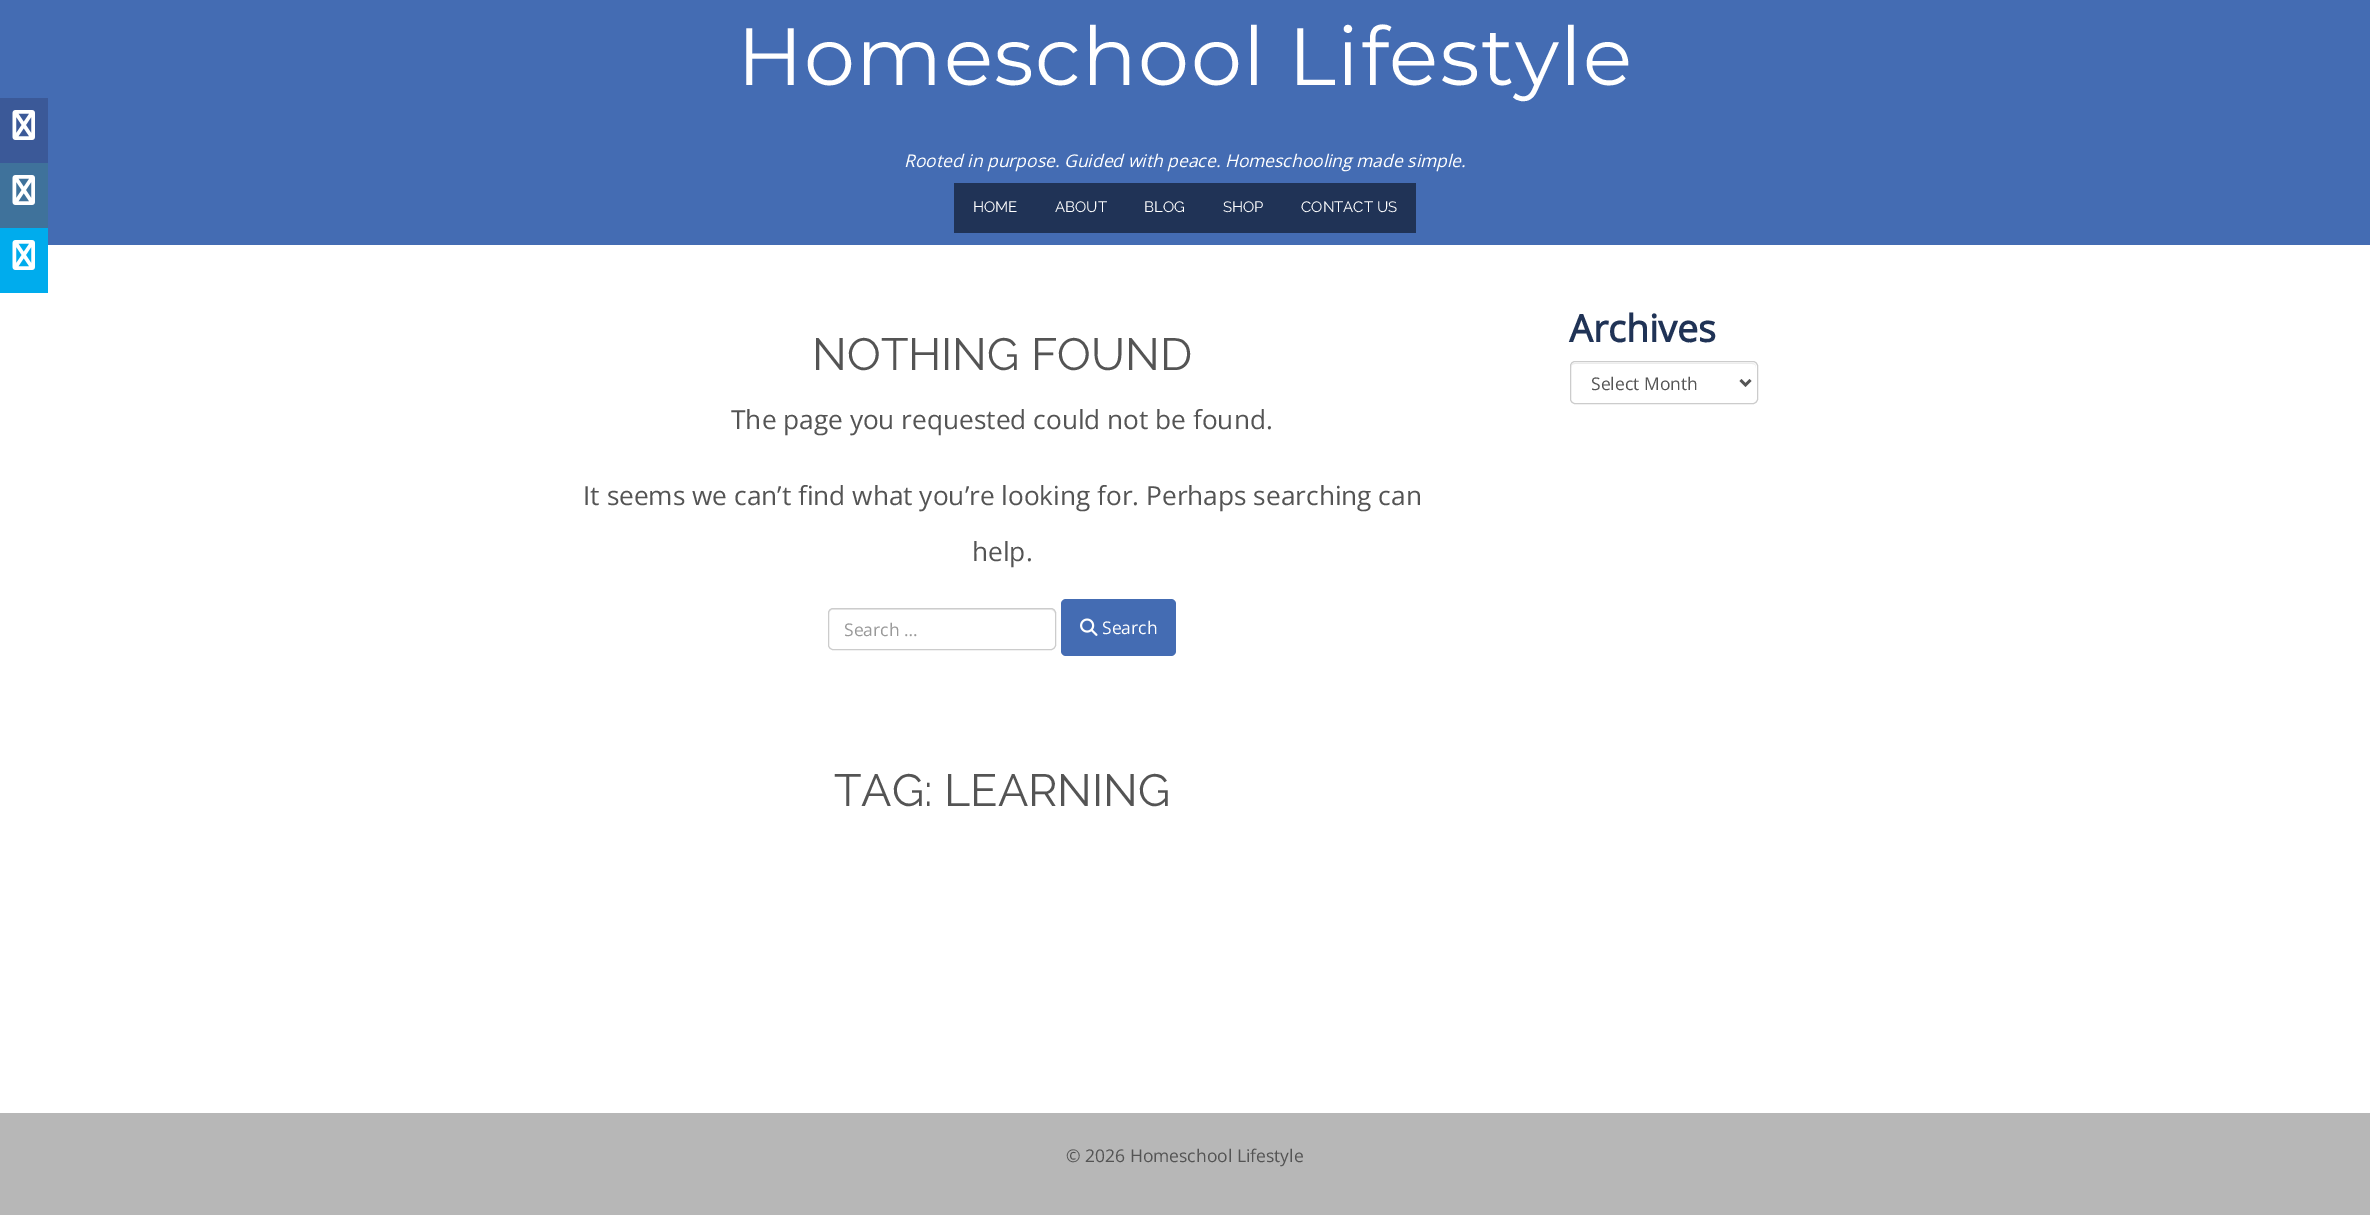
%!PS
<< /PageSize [2370 1215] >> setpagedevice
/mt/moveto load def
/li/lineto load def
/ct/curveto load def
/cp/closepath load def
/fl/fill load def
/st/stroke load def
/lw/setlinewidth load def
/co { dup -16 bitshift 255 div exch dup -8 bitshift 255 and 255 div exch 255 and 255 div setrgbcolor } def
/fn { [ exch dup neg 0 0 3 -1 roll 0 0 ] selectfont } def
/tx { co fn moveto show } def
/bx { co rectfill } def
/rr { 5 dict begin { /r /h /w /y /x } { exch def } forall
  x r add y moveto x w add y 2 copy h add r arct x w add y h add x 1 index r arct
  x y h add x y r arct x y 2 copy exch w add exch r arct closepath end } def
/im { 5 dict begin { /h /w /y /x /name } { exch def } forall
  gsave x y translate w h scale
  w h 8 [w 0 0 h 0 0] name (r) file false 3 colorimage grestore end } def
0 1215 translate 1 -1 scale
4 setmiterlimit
0 0 2370 1215 16#446CB3 bx
0 98 48 65 16#3B5998 bx
(media/1.raw) 12 110 23 30 im
0 163 48 65 16#3F729B bx
(media/2.raw) 12 175 23 30 im
0 245 2370 868 16#FFFFFF bx
0 228 48 65 16#00ACED bx
(media/3.raw) 12 240 23 30 im
954 183 462 50 16#203356 bx
16#ECECEC co
832 610 mt 1051 610 li 1053 610 1055 612 1055 614 ct 1055 611 1054 609 1051 609 ct 833 609 li 830 609 829 611 829 614 ct 829 612 830 610 832 610 ct cp fl
16#CCCCCC co
828.5 608.5 227 41 4.5 rr st
16#446CB3 co
1061 599 115 57 5 rr fl
(media/4.raw) 1080 618 18 18 im
16#ECECEC co
1575 364 mt 1752 364 li 1755 364 1756 365 1756 368 ct 1756 365 1755 363 1752 363 ct 1574 363 li 1572 364 1571 366 1571 368 ct 1571 365 1573 364 1575 364 ct cp fl
16#CCCCCC co
1570.5 361.5 187 42 4.5 rr st
16#555555 co
2.5 lw
1740.5 380 mt 1745.5 385 li 1750.5 380 li st
0 1113 2370 102 16#B7B7B7 bx
/Montserrat-Thin 81.25 fn
16#FFFFFF co
737 85 mt 1.25 0 (Homeschool Lifestyle) ashow
(Rooted in purpose. Guided with peace. Homeschooling made simple.) 904 167 /OpenSans-Italic 17.5 16#FFFFFF tx
(HOME) 973 212 /Raleway-Thin 15 16#FFFFFF tx
(ABOUT) 1055 212 /Raleway-Thin 15 16#FFFFFF tx
(BLOG) 1144 212 /Raleway-Thin 15 16#FFFFFF tx
(SHOP) 1223 212 /Raleway-Thin 15 16#FFFFFF tx
(CONTACT US) 1301 212 /Raleway-Thin 15 16#FFFFFF tx
(NOTHING FOUND) 812 370 /Raleway-Thin 45 16#545454 tx
(The page you requested could not be found.) 731 429 /OpenSans-Regular 26.25 16#545454 tx
(It seems we can’t find what you’re looking for. Perhaps searching can) 583 505 /OpenSans-Regular 26.25 16#545454 tx
(help.) 972 561 /OpenSans-Regular 26.25 16#545454 tx
(Search …) 844 636 /OpenSans-Regular 17.5 16#999999 tx
(Search) 1102 634 /OpenSans-Regular 17.5 16#FFFFFF tx
(TAG: LEARNING) 834 806 /Raleway-Thin 45 16#545454 tx
(Archives) 1569 342 /OpenSans-Bold 37.5 16#203356 tx
(Select Month) 1591 390 /OpenSans-Regular 17.5 16#545454 tx
(© 2026 Homeschool Lifestyle) 1066 1162 /OpenSans-Regular 17.5 16#545454 tx
showpage
